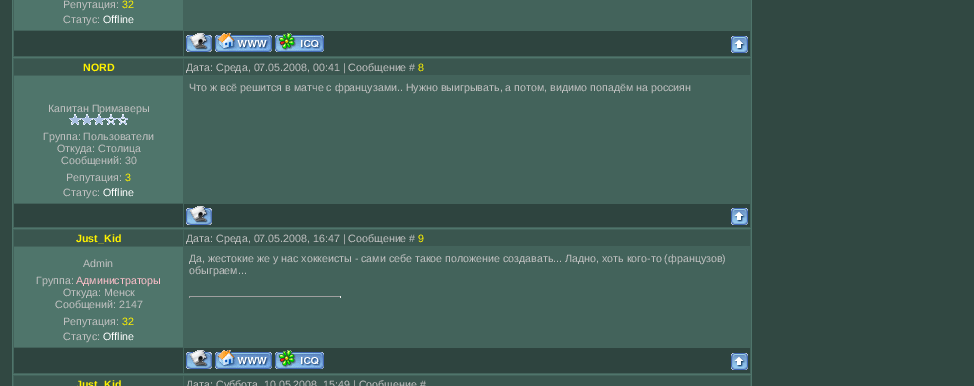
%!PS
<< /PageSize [974 386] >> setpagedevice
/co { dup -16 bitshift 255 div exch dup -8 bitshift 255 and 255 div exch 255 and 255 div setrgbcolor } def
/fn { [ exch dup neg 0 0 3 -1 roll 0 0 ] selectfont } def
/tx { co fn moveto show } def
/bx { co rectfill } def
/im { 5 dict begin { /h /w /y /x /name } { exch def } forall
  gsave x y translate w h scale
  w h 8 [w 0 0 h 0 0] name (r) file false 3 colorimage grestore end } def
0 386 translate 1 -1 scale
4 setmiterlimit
0 0 974 386 16#314842 bx
12 0 740 386 16#4F756B bx
13 0 738 57 16#43635B bx
14 0 169 30 16#4F756B bx
14 31 169 25 16#2E443F bx
184 31 566 25 16#2E443F bx
(media/1.raw) 186 33 26 19 im
(media/2.raw) 215 33 57 19 im
(media/3.raw) 275 33 49 19 im
(media/4.raw) 731 36 17 17 im
13 58 738 170 16#43635B bx
14 59 169 16 16#3A564F bx
184 59 566 16 16#3A564F bx
14 76 169 127 16#4F756B bx
14 204 169 23 16#2E443F bx
184 204 566 23 16#2E443F bx
(media/1.raw) 186 206 26 19 im
(media/4.raw) 731 208 17 17 im
13 229 738 145 16#43635B bx
14 230 169 16 16#3A564F bx
184 230 566 16 16#3A564F bx
14 247 169 100 16#4F756B bx
189 296 152 1 16#9F9F9F bx
340 296 1 2 16#EEEEEE bx
189 296 1 2 16#9F9F9F bx
14 348 169 25 16#2E443F bx
184 348 566 25 16#2E443F bx
(media/1.raw) 186 350 26 19 im
(media/2.raw) 215 350 57 19 im
(media/3.raw) 275 350 49 19 im
(media/4.raw) 731 353 17 17 im
13 375 738 11 16#43635B bx
14 376 169 10 16#3A564F bx
184 376 566 10 16#3A564F bx
(Репутация:) 63 8 /LiberationSans-Regular 10.67 16#C2C2C2 tx
(32) 122 8 /LiberationSans-Regular 10.67 16#FFF200 tx
(Статус:) 63 23 /LiberationSans-Regular 10.67 16#C2C2C2 tx
(Offline) 103 23 /LiberationSans-Regular 10.67 16#FFFFFF tx
(NORD) 83 71 /LiberationSans-Bold 10.67 16#FFF200 tx
(Дата: Среда, 07.05.2008, 00:41 | Сообщение #) 186 71 /LiberationSans-Regular 10.67 16#C2C2C2 tx
(8) 418 71 /LiberationSans-Regular 10.67 16#FFF200 tx
(Что ж всё решится в матче с французами.. Нужно выигрывать, а потом, видимо попадём на россиян) 189 91 /LiberationSans-Regular 10.67 16#C2C2C2 tx
(Капитан Примаверы) 48 112 /LiberationSans-Regular 10.67 16#C2C2C2 tx
(media/5.raw) 69 114 59 11 im
(Группа: Пользователи) 43 140 /LiberationSans-Regular 10.67 16#C2C2C2 tx
(Откуда: Столица) 57 152 /LiberationSans-Regular 10.67 16#C2C2C2 tx
(Сообщений: 30) 61 164 /LiberationSans-Regular 10.67 16#C2C2C2 tx
(Репутация:) 66 181 /LiberationSans-Regular 10.67 16#C2C2C2 tx
(3) 125 181 /LiberationSans-Regular 10.67 16#FFF200 tx
(Статус:) 63 196 /LiberationSans-Regular 10.67 16#C2C2C2 tx
(Offline) 103 196 /LiberationSans-Regular 10.67 16#FFFFFF tx
(Just_Kid) 76 242 /LiberationSans-Bold 10.67 16#FFF200 tx
(Дата: Среда, 07.05.2008, 16:47 | Сообщение #) 186 242 /LiberationSans-Regular 10.67 16#C2C2C2 tx
(9) 418 242 /LiberationSans-Regular 10.67 16#FFF200 tx
(Admin) 83 267 /LiberationSans-Regular 10.67 16#C2C2C2 tx
(Группа:) 36 284 /LiberationSans-Regular 10.67 16#C2C2C2 tx
(Администраторы) 76 284 /LiberationSans-Regular 10.67 16#FFC0CB tx
(Откуда: Менск) 63 296 /LiberationSans-Regular 10.67 16#C2C2C2 tx
(Сообщений: 2147) 55 308 /LiberationSans-Regular 10.67 16#C2C2C2 tx
(Репутация:) 63 325 /LiberationSans-Regular 10.67 16#C2C2C2 tx
(32) 122 325 /LiberationSans-Regular 10.67 16#FFF200 tx
(Статус:) 63 340 /LiberationSans-Regular 10.67 16#C2C2C2 tx
(Offline) 103 340 /LiberationSans-Regular 10.67 16#FFFFFF tx
(Да, жестокие же у нас хоккеисты - сами себе такое положение создавать... Ладно, хоть кого-то \(французов\)) 189 262 /LiberationSans-Regular 10.67 16#C2C2C2 tx
(обыграем...) 189 274 /LiberationSans-Regular 10.67 16#C2C2C2 tx
(Just_Kid) 76 388 /LiberationSans-Bold 10.67 16#FFF200 tx
(Дата: Суббота, 10.05.2008, 15:49 | Сообщение #) 186 388 /LiberationSans-Regular 10.67 16#C2C2C2 tx
showpage
